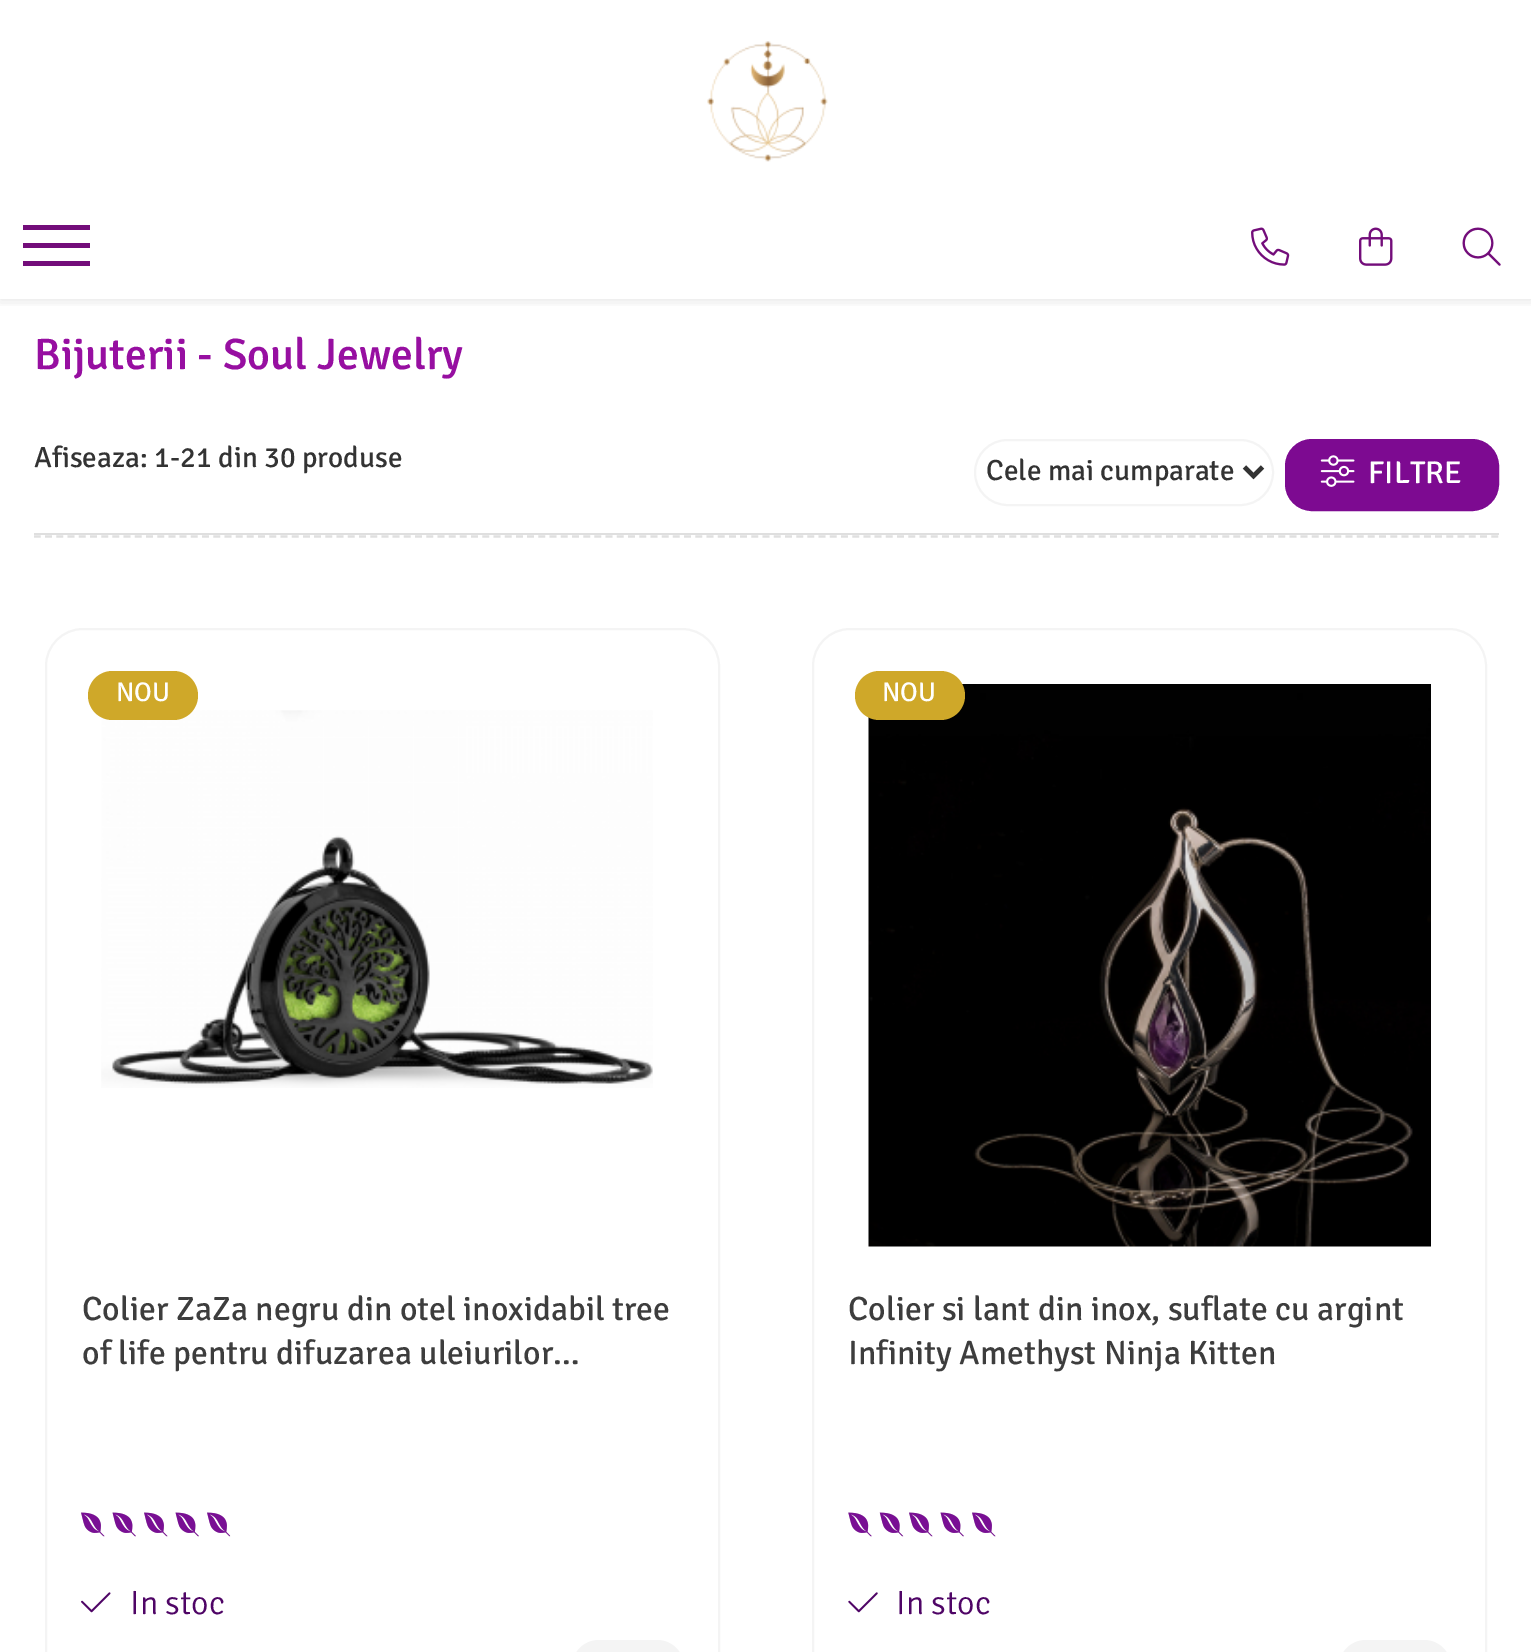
%!PS
<< /PageSize [1531 1652] /PageUsesTransparency true >> setpagedevice
/mt/moveto load def
/li/lineto load def
/ct/curveto load def
/cp/closepath load def
/fl/fill load def
/st/stroke load def
/gs/gsave load def
/gr/grestore load def
/lw/setlinewidth load def
/co { dup -16 bitshift 255 div exch dup -8 bitshift 255 and 255 div exch 255 and 255 div setrgbcolor } def
/fn { [ exch dup neg 0 0 3 -1 roll 0 0 ] selectfont } def
/tx { co fn moveto show } def
/bx { co rectfill } def
/al { dup .setfillconstantalpha .setstrokeconstantalpha } def
/rr { 5 dict begin { /r /h /w /y /x } { exch def } forall
  x r add y moveto x w add y 2 copy h add r arct x w add y h add x 1 index r arct
  x y h add x y r arct x y 2 copy exch w add exch r arct closepath end } def
/sh { 12 dict begin { /a /b /q /h /w /y /x } { exch def } forall gsave /was 0 def
  9 -2 -9 { dup b mul 4 div /e exch def 1 sub .425 mul 2.718 exch exp 1 add a .99 .min exch div /now exch def
    1 1 now sub 1 was sub div sub al /was now def
    w h .min e 2 mul add 0 gt { x e sub y e sub w e 2 mul add h e 2 mul add
      q e add b .6 mul add w h .min 2 div e add .min 0 .max rr fill } if } for grestore end } def
/im { 5 dict begin { /h /w /y /x /name } { exch def } forall
  gsave x y translate w h scale
  w h 8 [w 0 0 h 0 0] name (r) file false 3 colorimage grestore end } def
0 .pushpdf14devicefilter
0 1652 translate 1 -1 scale
4 setmiterlimit
0 0 1531 1652 16#FFFFFF bx
gs
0 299 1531 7 rectclip
16#000000 co
0 0 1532 299 0 7 .12 sh
gr
(media/1.raw) 707 41 121 121 im
23 243 67 5 16#730D7A bx
23 225 67 5 16#730D7A bx
23 261 67 5 16#730D7A bx
(media/2.raw) 1251 227 39 39 im
(media/3.raw) 1359 227 34 39 im
(media/4.raw) 1462 227 39 39 im
34 533 1465 2 16#DFDFDF bx
16#F4F4F4 co
2 lw
975 440 298 65 32.5 rr st
16#333333 co
4.5 lw
1244.5 467 mt 1253.5 476 li 1262.5 467 li st
16#7D0A91 co
1286 440 212 70 26 rr gs fl gr
2 lw
st
(media/5.raw) 1320 455 35 32 im
16#DFDFDF co
2.2 lw
[6.75 4.46] 0 setdash
34 536.5 mt 1498.5 536.5 li st
16#F4F4F4 co
2 lw
[] 0 setdash
46 629 673 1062 37 rr st
(media/6.raw) 101 710 552 378 im
16#CFA829 co
88 671 110 49 24.5 rr fl
(media/7.raw) 81 1512 24 25 im
(media/8.raw) 81 1512 24 25 im
(media/11.raw) 112 1512 24 25 im
(media/9.raw) 112 1512 24 25 im
(media/7.raw) 144 1512 24 25 im
(media/8.raw) 144 1512 24 25 im
(media/11.raw) 175 1512 24 25 im
(media/9.raw) 175 1512 24 25 im
(media/7.raw) 207 1512 24 25 im
(media/10.raw) 207 1512 23 25 im
(media/12.raw) 81 1592 30 21 im
16#F4F4F4 co
599 1640 mt 657 1640 li 672 1640 684 1652 684 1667 ct 684 1652 li 684 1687 656 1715 621 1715 ct 599 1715 li 584 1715 572 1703 572 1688 ct 572 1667 li 572 1652 584 1640 599 1640 ct cp fl
813 629 673 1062 37 rr st
(media/13.raw) 868 684 563 563 im
16#CFA829 co
855 671 110 49 24.5 rr fl
(media/14.raw) 848 1512 24 25 im
(media/15.raw) 848 1512 24 25 im
(media/17.raw) 879 1512 24 25 im
(media/16.raw) 879 1512 25 25 im
(media/7.raw) 909 1512 24 25 im
(media/8.raw) 909 1512 24 25 im
(media/11.raw) 940 1512 24 25 im
(media/9.raw) 940 1512 24 25 im
(media/7.raw) 972 1512 24 25 im
(media/8.raw) 972 1512 24 25 im
(media/18.raw) 848 1592 30 21 im
16#F4F4F4 co
1366 1640 mt 1424 1640 li 1439 1640 1451 1652 1451 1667 ct 1451 1652 li 1451 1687 1423 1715 1388 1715 ct 1366 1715 li 1351 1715 1339 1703 1339 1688 ct 1339 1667 li 1339 1652 1351 1640 1366 1640 ct cp fl
(Bijuterii - Soul Jewelry) 34 369 /Signika-Medium 44 16#970FA1 tx
(Afiseaza: 1-21 din 30 produse) 34 467 /Signika-Regular 29.25 16#333333 tx
(Cele mai cumparate) 986 480 /Signika-Regular 29.25 16#333333 tx
(FILTRE) 1368 483 /Signika-Regular 31.5 16#FFFFFF tx
(NOU) 116 701 /Signika-Regular 27 16#FFFFFF tx
(Colier ZaZa negru din otel inoxidabil tree) 82 1320 /Signika-Regular 33.75 16#3D3D3D tx
(of life pentru difuzarea uleiurilor…) 82 1364 /Signika-Regular 33.75 16#3D3D3D tx
(In stoc) 130 1614 /Signika-Light 33.75 16#4F0566 tx
(NOU) 882 701 /Signika-Regular 27 16#FFFFFF tx
(Colier si lant din inox, suflate cu argint) 848 1320 /Signika-Regular 33.75 16#3D3D3D tx
(Infinity Amethyst Ninja Kitten) 848 1364 /Signika-Regular 33.75 16#3D3D3D tx
(In stoc) 896 1614 /Signika-Light 33.75 16#4F0566 tx
.poppdf14devicefilter showpage
